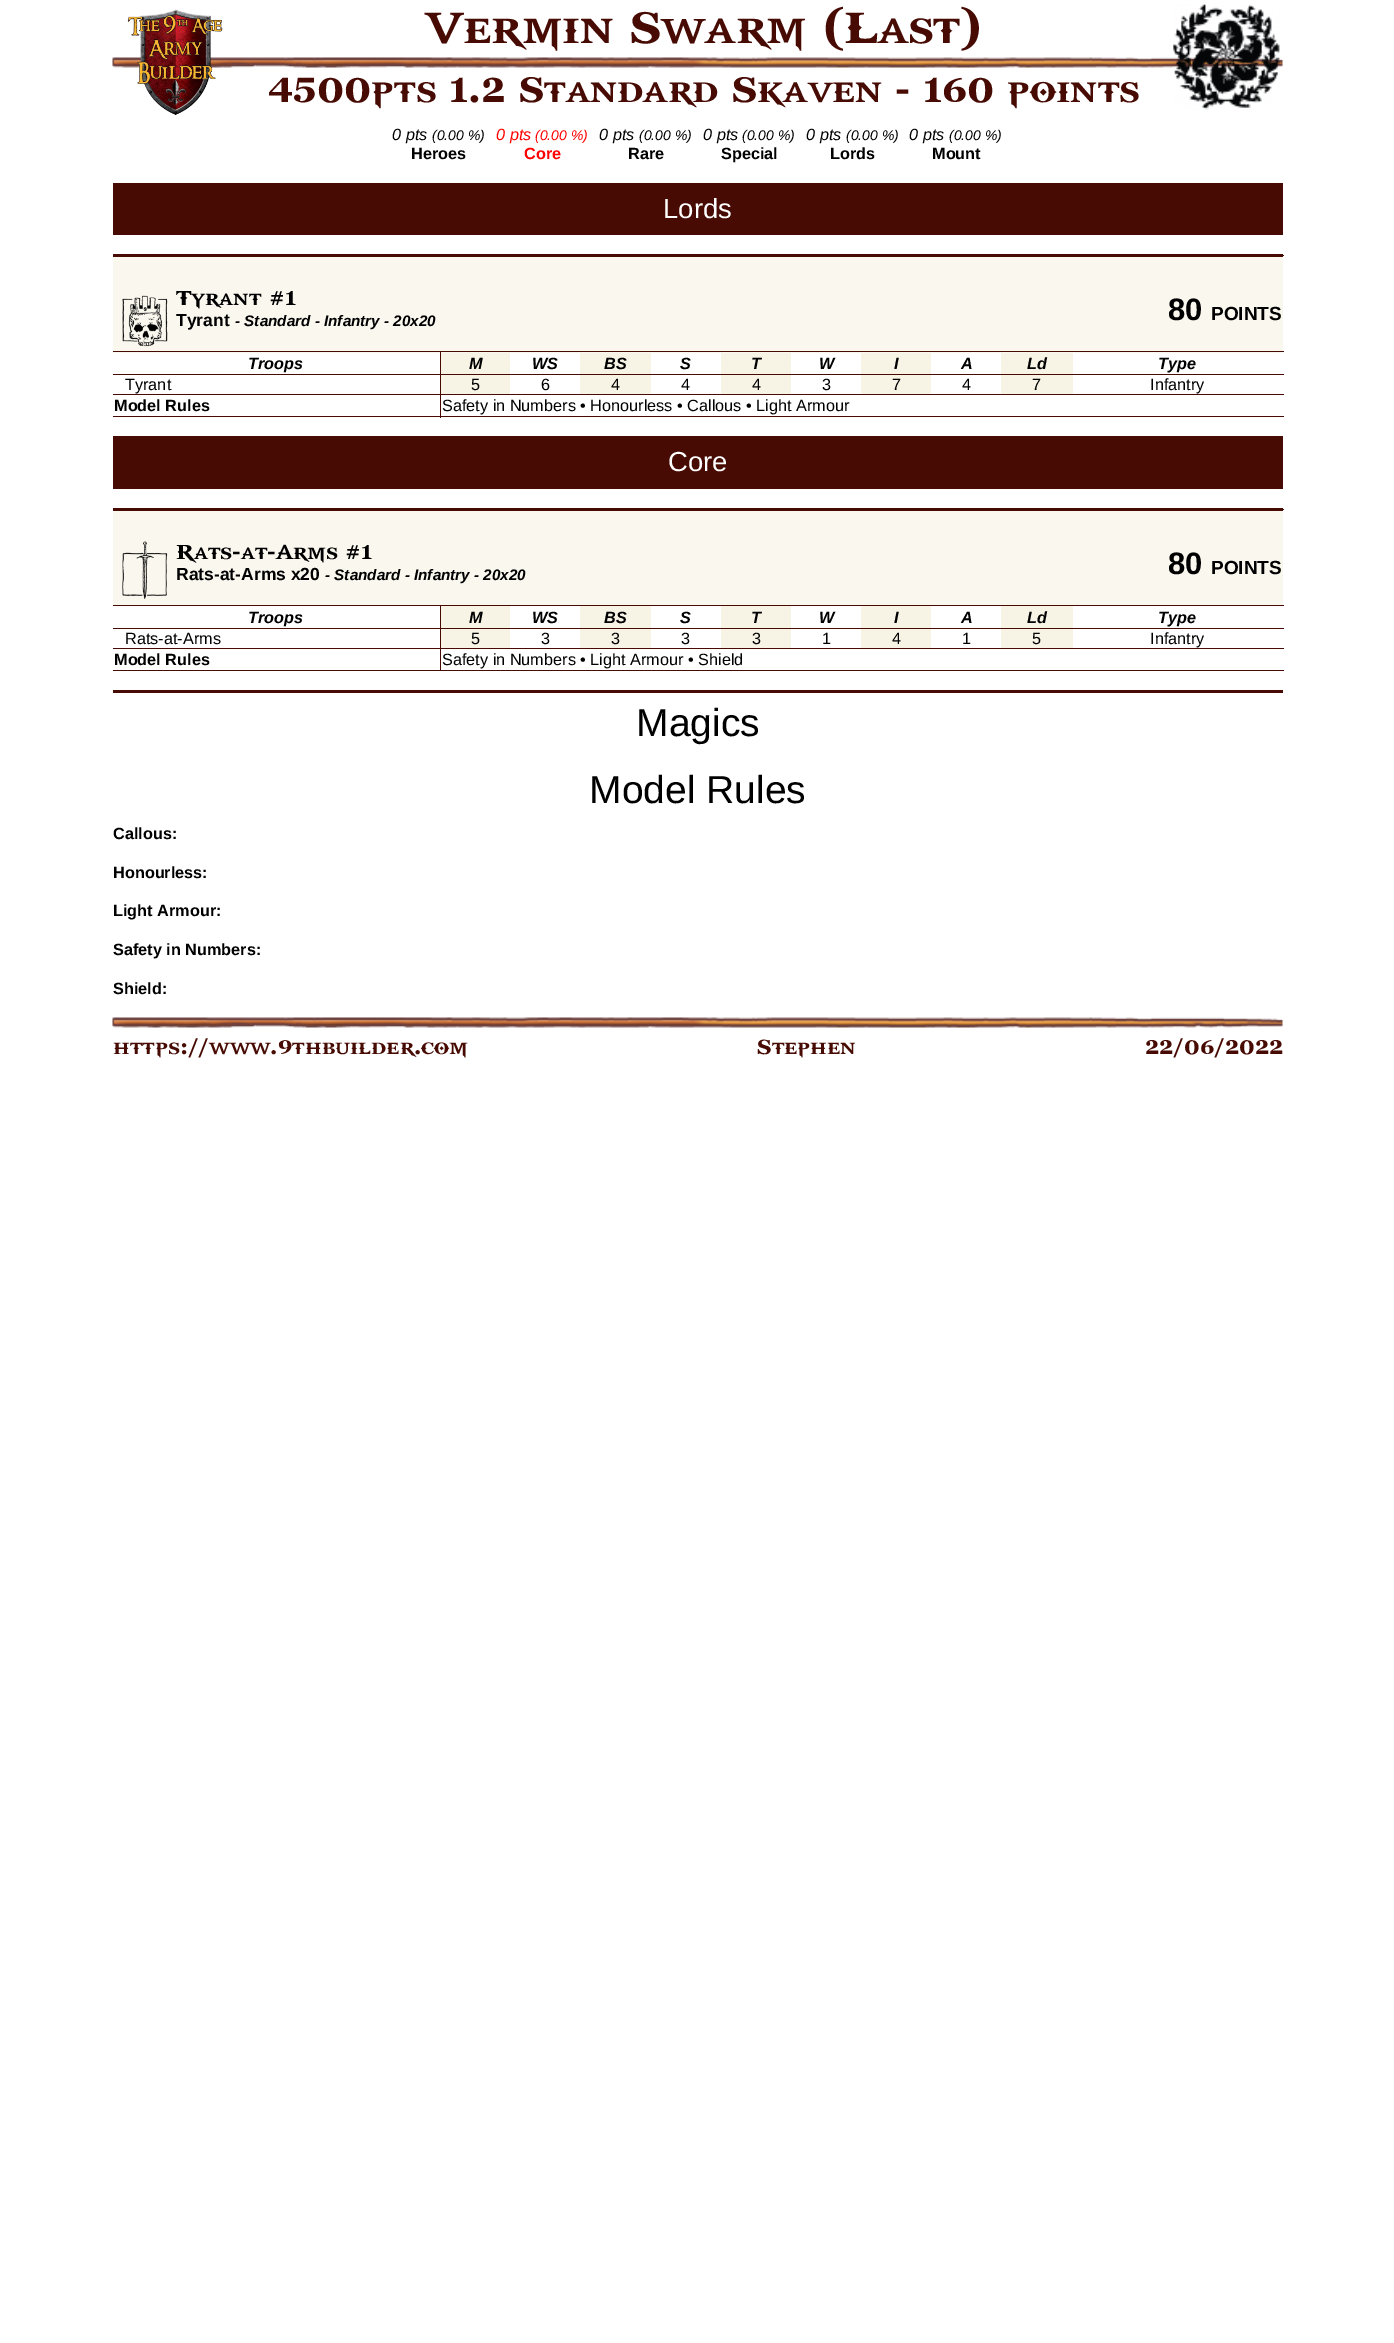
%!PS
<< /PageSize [1394 2343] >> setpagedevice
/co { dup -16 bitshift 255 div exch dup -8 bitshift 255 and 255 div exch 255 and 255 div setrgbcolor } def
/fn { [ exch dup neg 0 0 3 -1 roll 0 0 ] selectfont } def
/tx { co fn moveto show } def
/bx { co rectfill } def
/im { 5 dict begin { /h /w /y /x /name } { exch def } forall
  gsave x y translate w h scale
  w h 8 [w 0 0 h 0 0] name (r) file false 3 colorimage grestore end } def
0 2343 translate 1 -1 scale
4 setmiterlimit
0 0 1394 2343 16#FFFFFF bx
(media/1.raw) 112 57 1171 11 im
(media/2.raw) 127 9 96 106 im
(media/3.raw) 1173 4 107 106 im
113 183 1170 52 16#470B03 bx
113 254 1170 3 16#470B03 bx
1283 255 1 1 16#470B03 bx
113 257 1170 96 16#FAF7EE bx
113 351 1171 1 16#470B03 bx
(media/4.raw) 122 295 46 52 im
113 394 1171 1 16#470B03 bx
113 416 1171 1 16#470B03 bx
440 374 1 44 16#470B03 bx
440 374 844 1 16#470B03 bx
440 351 1 24 16#470B03 bx
113 374 328 1 16#470B03 bx
441 353 69 21 16#F7F3E5 bx
580 353 71 21 16#F7F3E5 bx
721 353 70 21 16#F7F3E5 bx
861 353 70 21 16#F7F3E5 bx
1001 353 72 21 16#F7F3E5 bx
441 375 69 19 16#F7F3E5 bx
580 375 71 19 16#F7F3E5 bx
721 375 70 19 16#F7F3E5 bx
861 375 70 19 16#F7F3E5 bx
1001 375 72 19 16#F7F3E5 bx
113 436 1170 53 16#470B03 bx
113 508 1170 3 16#470B03 bx
1283 509 1 1 16#470B03 bx
113 605 1171 1 16#470B03 bx
113 511 1170 94 16#FAF7EE bx
(media/5.raw) 122 541 46 58 im
113 648 1171 1 16#470B03 bx
113 670 1171 1 16#470B03 bx
440 628 1 43 16#470B03 bx
440 628 844 1 16#470B03 bx
440 605 1 24 16#470B03 bx
113 628 328 1 16#470B03 bx
441 606 69 22 16#F7F3E5 bx
580 606 71 22 16#F7F3E5 bx
721 606 70 22 16#F7F3E5 bx
861 606 70 22 16#F7F3E5 bx
1001 606 72 22 16#F7F3E5 bx
441 629 69 19 16#F7F3E5 bx
580 629 71 19 16#F7F3E5 bx
721 629 70 19 16#F7F3E5 bx
861 629 70 19 16#F7F3E5 bx
1001 629 72 19 16#F7F3E5 bx
113 690 1170 3 16#470B03 bx
(media/1.raw) 112 1017 1171 11 im
(Vermin Swarm \(Last\)) 426 43 /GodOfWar-Regular 48.5 16#470B03 tx
(4500pts 1.2 Standard Skaven - 160 points) 268 102 /GodOfWar-Regular 39.05 16#470B03 tx
(0 pts) 392 140 /LiberationSans-Italic 16.25 16#000000 tx
(\(0.00 %\)) 432 140 /LiberationSans-Italic 14 16#000000 tx
(Heroes) 411 159 /LiberationSans-Bold 16.25 16#000000 tx
(0 pts) 496 140 /LiberationSans-Italic 16.25 16#FF0000 tx
(\(0.00 %\)) 535 140 /LiberationSans-Italic 14 16#FF0000 tx
(Core) 524 159 /LiberationSans-Bold 16.25 16#FF0000 tx
(0 pts) 599 140 /LiberationSans-Italic 16.25 16#000000 tx
(\(0.00 %\)) 639 140 /LiberationSans-Italic 14 16#000000 tx
(Rare) 628 159 /LiberationSans-Bold 16.25 16#000000 tx
(0 pts) 703 140 /LiberationSans-Italic 16.25 16#000000 tx
(\(0.00 %\)) 742 140 /LiberationSans-Italic 14 16#000000 tx
(Special) 721 159 /LiberationSans-Bold 16.25 16#000000 tx
(0 pts) 806 140 /LiberationSans-Italic 16.25 16#000000 tx
(\(0.00 %\)) 846 140 /LiberationSans-Italic 14 16#000000 tx
(Lords) 830 159 /LiberationSans-Bold 16.25 16#000000 tx
(0 pts) 909 140 /LiberationSans-Italic 16.25 16#000000 tx
(\(0.00 %\)) 949 140 /LiberationSans-Italic 14 16#000000 tx
(Mount) 932 159 /LiberationSans-Bold 16.25 16#000000 tx
(Lords) 663 218 /LiberationSans-Regular 27.5 16#FFFFFF tx
(Tyrant #1) 176 305 /GodOfWar-Regular 22.5 16#000000 tx
(Tyrant) 176 326 /LiberationSans-Bold 17.5 16#000000 tx
(- Standard - Infantry - 20x20) 235 326 /LiberationSans-BoldItalic 15.25 16#000000 tx
(80) 1168 320 /LiberationSans-Bold 31 16#000000 tx
(POINTS) 1211 320 /LiberationSans-Bold 19 16#000000 tx
(Troops) 248 369 /LiberationSans-BoldItalic 16.25 16#000000 tx
(M) 469 369 /LiberationSans-BoldItalic 16.25 16#000000 tx
(WS) 532 369 /LiberationSans-BoldItalic 16.25 16#000000 tx
(BS) 604 369 /LiberationSans-BoldItalic 16.25 16#000000 tx
(S) 680 369 /LiberationSans-BoldItalic 16.25 16#000000 tx
(T) 751 369 /LiberationSans-BoldItalic 16.25 16#000000 tx
(W) 819 369 /LiberationSans-BoldItalic 16.25 16#000000 tx
(I) 894 369 /LiberationSans-BoldItalic 16.25 16#000000 tx
(A) 961 369 /LiberationSans-BoldItalic 16.25 16#000000 tx
(Ld) 1027 369 /LiberationSans-BoldItalic 16.25 16#000000 tx
(Type) 1158 369 /LiberationSans-BoldItalic 16.25 16#000000 tx
(Tyrant) 125 390 /LiberationSans-Regular 16.25 16#000000 tx
(5) 471 390 /LiberationSans-Regular 16.25 16#000000 tx
(6) 541 390 /LiberationSans-Regular 16.25 16#000000 tx
(4) 611 390 /LiberationSans-Regular 16.25 16#000000 tx
(4) 681 390 /LiberationSans-Regular 16.25 16#000000 tx
(4) 752 390 /LiberationSans-Regular 16.25 16#000000 tx
(3) 822 390 /LiberationSans-Regular 16.25 16#000000 tx
(7) 892 390 /LiberationSans-Regular 16.25 16#000000 tx
(4) 962 390 /LiberationSans-Regular 16.25 16#000000 tx
(7) 1032 390 /LiberationSans-Regular 16.25 16#000000 tx
(Infantry) 1150 390 /LiberationSans-Regular 16.25 16#000000 tx
(Model Rules) 114 411 /LiberationSans-Bold 16.25 16#000000 tx
(Safety in Numbers • Honourless • Callous • Light Armour) 442 411 /LiberationSans-Regular 16.25 16#000000 tx
(Core) 668 471 /LiberationSans-Regular 27.5 16#FFFFFF tx
(Rats-at-Arms #1) 176 559 /GodOfWar-Regular 22.5 16#000000 tx
(Rats-at-Arms x20) 176 580 /LiberationSans-Bold 17.5 16#000000 tx
(- Standard - Infantry - 20x20) 325 580 /LiberationSans-BoldItalic 15.25 16#000000 tx
(80) 1168 574 /LiberationSans-Bold 31 16#000000 tx
(POINTS) 1211 574 /LiberationSans-Bold 19 16#000000 tx
(Troops) 248 623 /LiberationSans-BoldItalic 16.25 16#000000 tx
(M) 469 623 /LiberationSans-BoldItalic 16.25 16#000000 tx
(WS) 532 623 /LiberationSans-BoldItalic 16.25 16#000000 tx
(BS) 604 623 /LiberationSans-BoldItalic 16.25 16#000000 tx
(S) 680 623 /LiberationSans-BoldItalic 16.25 16#000000 tx
(T) 751 623 /LiberationSans-BoldItalic 16.25 16#000000 tx
(W) 819 623 /LiberationSans-BoldItalic 16.25 16#000000 tx
(I) 894 623 /LiberationSans-BoldItalic 16.25 16#000000 tx
(A) 961 623 /LiberationSans-BoldItalic 16.25 16#000000 tx
(Ld) 1027 623 /LiberationSans-BoldItalic 16.25 16#000000 tx
(Type) 1158 623 /LiberationSans-BoldItalic 16.25 16#000000 tx
(Rats-at-Arms) 125 644 /LiberationSans-Regular 16.25 16#000000 tx
(5) 471 644 /LiberationSans-Regular 16.25 16#000000 tx
(3) 541 644 /LiberationSans-Regular 16.25 16#000000 tx
(3) 611 644 /LiberationSans-Regular 16.25 16#000000 tx
(3) 681 644 /LiberationSans-Regular 16.25 16#000000 tx
(3) 752 644 /LiberationSans-Regular 16.25 16#000000 tx
(1) 822 644 /LiberationSans-Regular 16.25 16#000000 tx
(4) 892 644 /LiberationSans-Regular 16.25 16#000000 tx
(1) 962 644 /LiberationSans-Regular 16.25 16#000000 tx
(5) 1032 644 /LiberationSans-Regular 16.25 16#000000 tx
(Infantry) 1150 644 /LiberationSans-Regular 16.25 16#000000 tx
(Model Rules) 114 665 /LiberationSans-Bold 16.25 16#000000 tx
(Safety in Numbers • Light Armour • Shield) 442 665 /LiberationSans-Regular 16.25 16#000000 tx
(Magics) 636 736 /LiberationSans-Regular 39.05 16#000000 tx
(Model Rules) 589 803 /LiberationSans-Regular 39.05 16#000000 tx
(Callous:) 113 839 /LiberationSans-Bold 16.25 16#000000 tx
(Honourless:) 113 878 /LiberationSans-Bold 16.25 16#000000 tx
(Light Armour:) 113 916 /LiberationSans-Bold 16.25 16#000000 tx
(Safety in Numbers:) 113 955 /LiberationSans-Bold 16.25 16#000000 tx
(Shield:) 113 994 /LiberationSans-Bold 16.25 16#000000 tx
(https://www.9thbuilder.com) 113 1054 /GodOfWar-Regular 22.5 16#470B03 tx
(Stephen) 757 1054 /GodOfWar-Regular 22.5 16#470B03 tx
(22/06/2022) 1145 1054 /GodOfWar-Regular 22.5 16#470B03 tx
showpage
